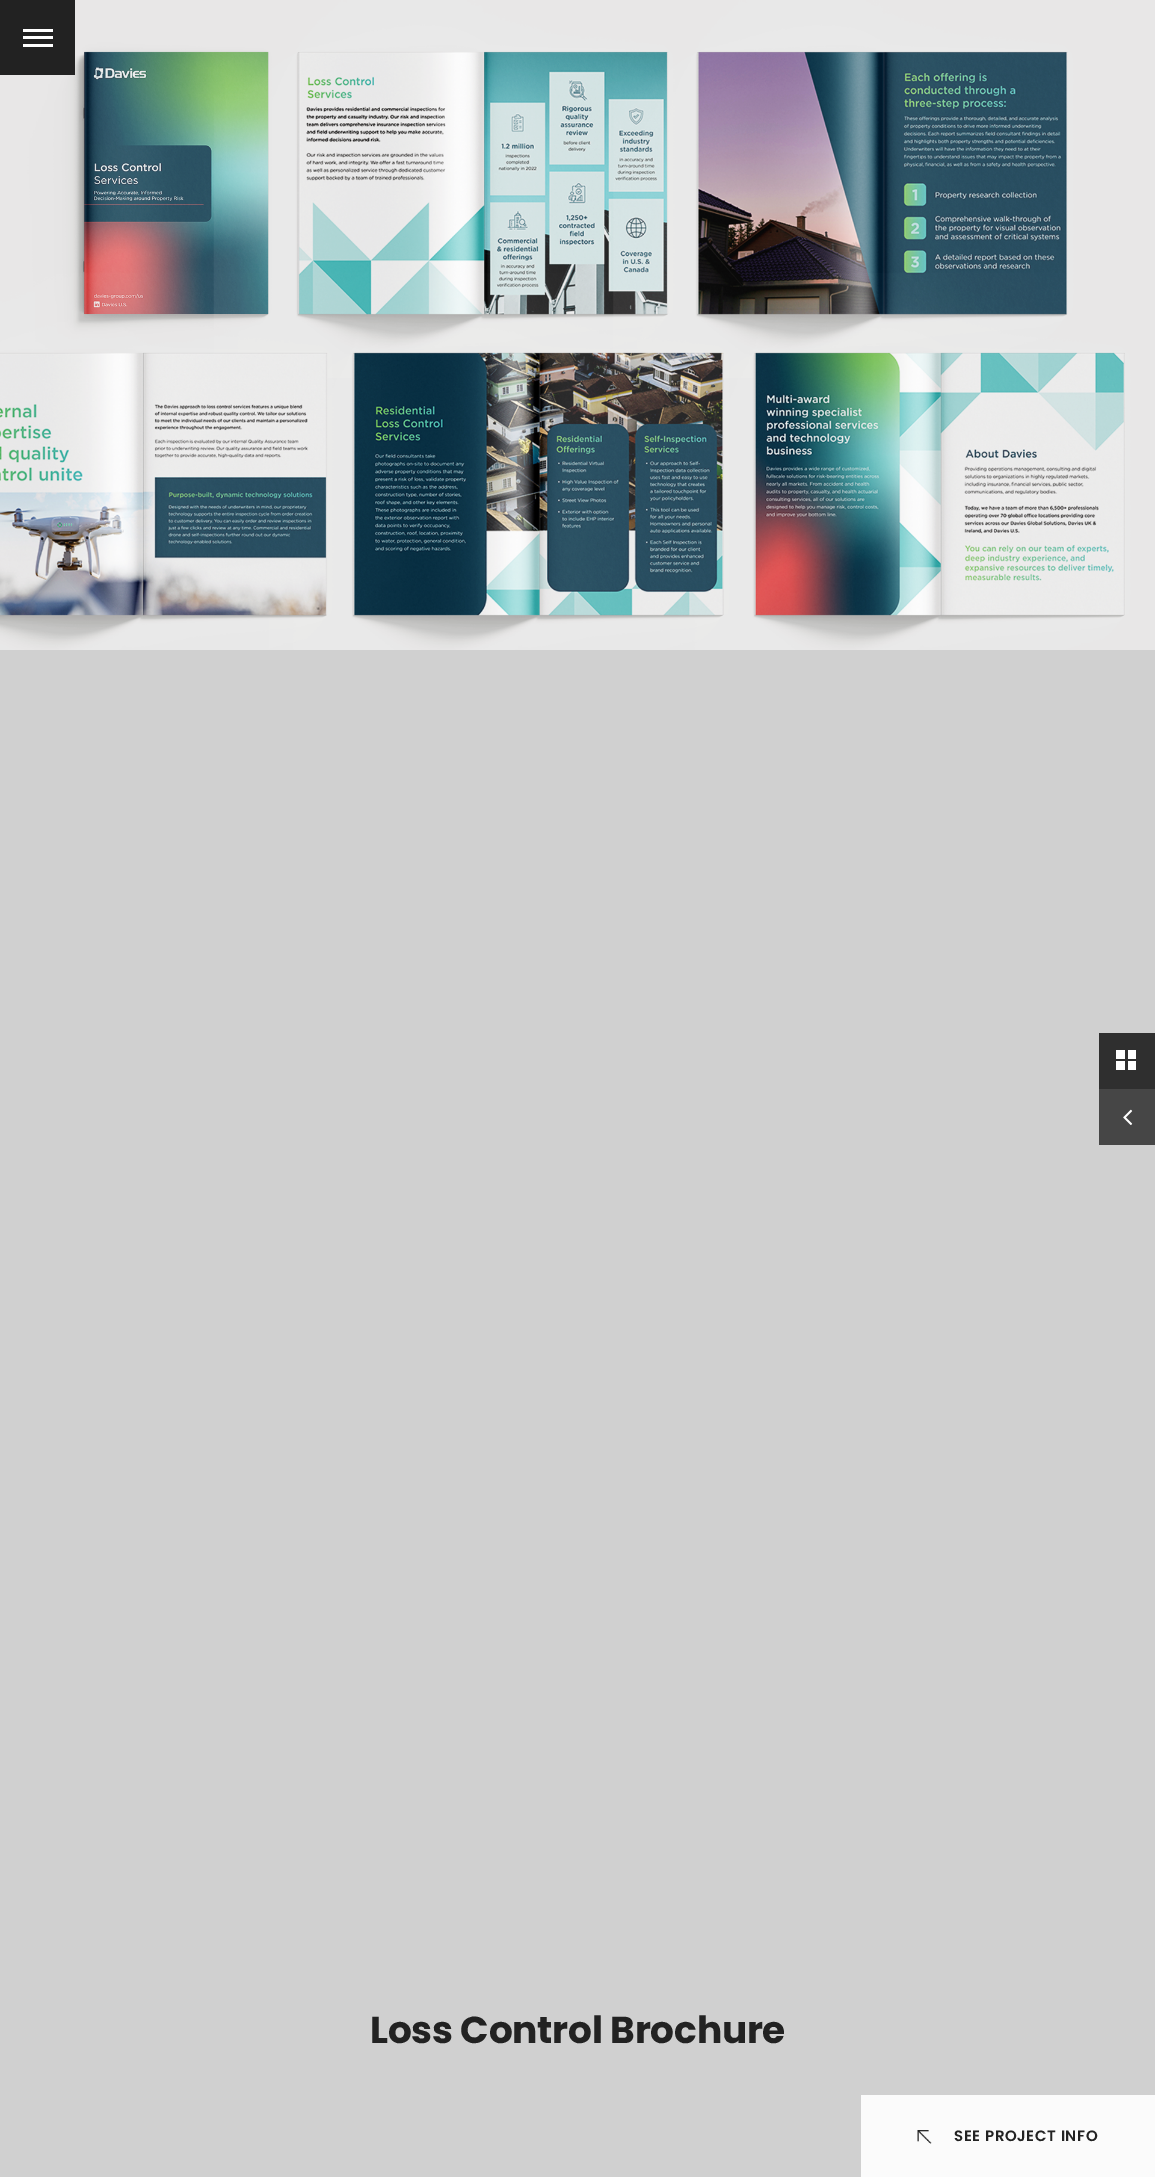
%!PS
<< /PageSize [1155 2177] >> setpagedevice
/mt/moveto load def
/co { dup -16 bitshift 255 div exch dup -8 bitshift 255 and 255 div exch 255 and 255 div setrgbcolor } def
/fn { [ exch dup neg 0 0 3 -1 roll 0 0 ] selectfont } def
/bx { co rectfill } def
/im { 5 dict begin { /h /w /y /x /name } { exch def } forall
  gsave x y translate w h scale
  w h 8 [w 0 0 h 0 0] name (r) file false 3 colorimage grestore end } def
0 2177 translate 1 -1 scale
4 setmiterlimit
0 0 1155 2177 16#D0D0D0 bx
(media/1.raw) 0 0 1155 650 im
0 0 75 75 16#222222 bx
23 29 30 3 16#FFFFFF bx
23 36 30 3 16#FFFFFF bx
23 44 30 3 16#FFFFFF bx
1099 1033 56 56 16#2F2F2F bx
1116 1050 9 9 16#FFFFFF bx
1128 1050 8 9 16#FFFFFF bx
1116 1061 9 9 16#FFFFFF bx
1128 1061 8 9 16#FFFFFF bx
1099 1089 56 56 16#464646 bx
(media/2.raw) 1123 1109 10 16 im
861 2095 294 82 16#FBFBFB bx
(media/3.raw) 917 2130 15 14 im
/Poppins-Bold 37.5 fn
16#222222 co
370 2043 mt -.25 0 (Loss Control Brochure) ashow
/Poppins-SemiBold 15 fn
954 2141 mt .6 0 (SEE PROJECT INFO) ashow
showpage
